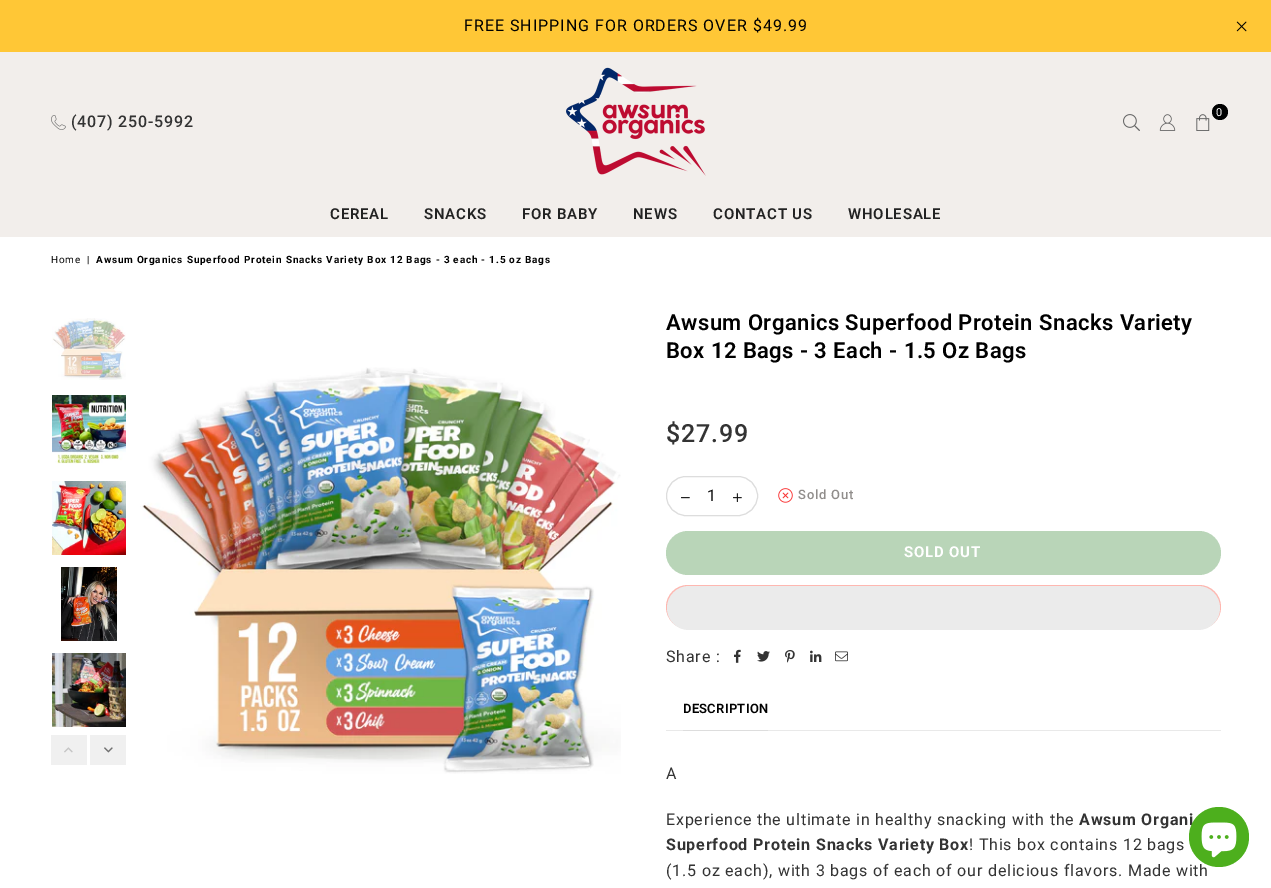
%!PS
<< /PageSize [1271 888] >> setpagedevice
/mt/moveto load def
/fl/fill load def
/st/stroke load def
/co { dup -16 bitshift 255 div exch dup -8 bitshift 255 and 255 div exch 255 and 255 div setrgbcolor } def
/fn { [ exch dup neg 0 0 3 -1 roll 0 0 ] selectfont } def
/tx { co fn moveto show } def
/bx { co rectfill } def
/ci { newpath 0 360 arc closepath } def
/rr { 5 dict begin { /r /h /w /y /x } { exch def } forall
  x r add y moveto x w add y 2 copy h add r arct x w add y h add x 1 index r arct
  x y h add x y r arct x y 2 copy exch w add exch r arct closepath end } def
/im { 5 dict begin { /h /w /y /x /name } { exch def } forall
  gsave x y translate w h scale
  w h 8 [w 0 0 h 0 0] name (r) file false 3 colorimage grestore end } def
0 888 translate 1 -1 scale
4 setmiterlimit
0 0 1271 888 16#FFFFFF bx
0 0 1271 52 16#FFC736 bx
(media/1.raw) 1236 21 11 11 im
0 52 1271 185 16#F2EEEB bx
(media/2.raw) 566 67 140 109 im
16#000000 co
1220 112 8 ci fl
(media/3.raw) 1196 114 14 17 im
(media/4.raw) 1123 114 17 17 im
(media/5.raw) 1159 114 17 17 im
(media/6.raw) 51 115 15 15 im
(media/7.raw) 52 318 74 62 im
(media/8.raw) 52 395 74 69 im
(media/9.raw) 52 481 74 74 im
(media/10.raw) 61 567 56 74 im
(media/11.raw) 52 653 74 74 im
51 735 36 30 16#F0F0F0 bx
(media/12.raw) 64 747 9 6 im
90 735 36 30 16#F0F0F0 bx
(media/13.raw) 104 747 9 6 im
(media/14.raw) 140 367 481 407 im
16#DDDDDD co
666.5 476.5 91 39 19.5 rr st
(media/15.raw) 681 497 9 2 im
(media/16.raw) 733 493 9 9 im
(media/17.raw) 778 488 15 15 im
16#B9D5B8 co
666 531 555 44 22 rr fl
16#FEB7B0 co
666 585 555 44 22 rr fl
16#EBEBEB co
667 586 553 44 22 rr fl
(media/18.raw) 734 649 7 14 im
(media/19.raw) 757 651 13 11 im
(media/20.raw) 785 650 10 13 im
(media/21.raw) 810 650 12 12 im
(media/22.raw) 835 651 13 11 im
666 730 555 1 16#E9E9E9 bx
683 730 85 1 16#DDDDDD bx
/Roboto-Regular 16 fn
16#000000 co
464 31 mt 1 0 (FREE SHIPPING FOR ORDERS OVER $49.99) ashow
/Roboto-Regular 11 fn
16#FFFFFF co
1216 116 mt .8 0 (0) ashow
/Roboto-Medium 16 fn
16#333333 co
71 127 mt .8 0 (\(407\) 250-5992) ashow
/Roboto-SemiBold 15 fn
16#222222 co
330 219 mt .8 0 (CEREAL) ashow
424 219 mt .8 0 (SNACKS) ashow
522 219 mt .8 0 (FOR BABY) ashow
633 219 mt .8 0 (NEWS) ashow
713 219 mt .8 0 (CONTACT US) ashow
848 219 mt .8 0 (WHOLESALE) ashow
/Roboto-Regular 10 fn
16#000000 co
51 263 mt .8 0 (Home) ashow
87 263 mt .8 0 (|) ashow
/Roboto-Bold 10 fn
96 263 mt .8 0 (Awsum Organics Superfood Protein Snacks Variety Box 12 Bags - 3 each - 1.5 oz Bags) ashow
/Roboto-SemiBold 22 fn
666 330 mt .45 0 (Awsum Organics Superfood Protein Snacks Variety) ashow
666 358 mt .45 0 (Box 12 Bags - 3 Each - 1.5 Oz Bags) ashow
/Roboto-Medium 25 fn
16#333333 co
666 442 mt .8 0 ($27.99) ashow
(1) 707 501 /Roboto-Regular 16 16#111111 tx
/Roboto-Medium 13 fn
16#908D8B co
798 499 mt .8 0 (Sold Out) ashow
/Roboto-Bold 15 fn
16#FFFFFF co
904 557 mt .8 0 (SOLD OUT) ashow
/Roboto-Regular 16 fn
16#333333 co
666 662 mt .8 0 (Share :) ashow
/Roboto-SemiBold 13 fn
16#000000 co
683 713 mt .25 0 (DESCRIPTION) ashow
/Roboto-Regular 16 fn
16#333333 co
666 779 mt .8 0 (A) ashow
666 825 mt .8 0 (Experience the ultimate in healthy snacking with the) ashow
/Roboto-Bold 16 fn
1079 825 mt .8 0 (Awsum Organi) ashow
666 850 mt .8 0 (Superfood Protein Snacks Variety Box) ashow
/Roboto-Regular 16 fn
969 850 mt .8 0 (! This box contains 12 bags) ashow
666 876 mt .8 0 (\(1.5 oz each\), with 3 bags of each of our delicious flavors. Made with) ashow
16#4DAF1D co
1219 837 30 ci fl
(media/23.raw) 1201 822 36 36 im
showpage
